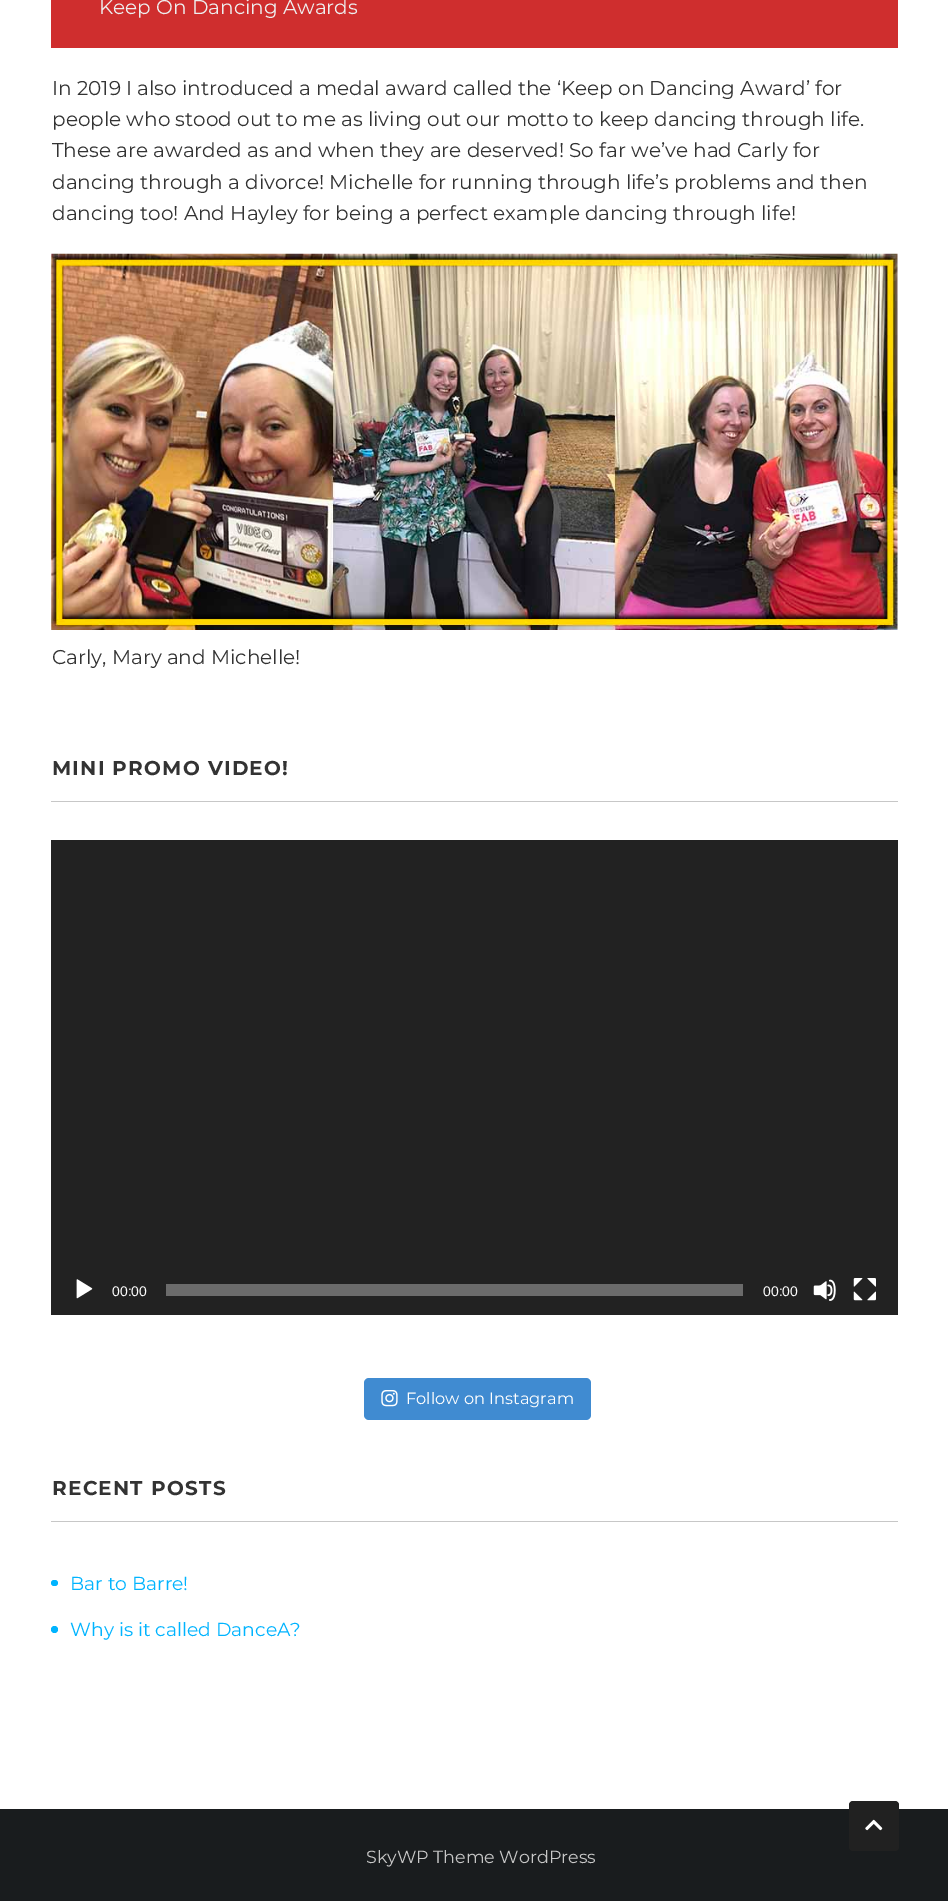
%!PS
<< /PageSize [948 1901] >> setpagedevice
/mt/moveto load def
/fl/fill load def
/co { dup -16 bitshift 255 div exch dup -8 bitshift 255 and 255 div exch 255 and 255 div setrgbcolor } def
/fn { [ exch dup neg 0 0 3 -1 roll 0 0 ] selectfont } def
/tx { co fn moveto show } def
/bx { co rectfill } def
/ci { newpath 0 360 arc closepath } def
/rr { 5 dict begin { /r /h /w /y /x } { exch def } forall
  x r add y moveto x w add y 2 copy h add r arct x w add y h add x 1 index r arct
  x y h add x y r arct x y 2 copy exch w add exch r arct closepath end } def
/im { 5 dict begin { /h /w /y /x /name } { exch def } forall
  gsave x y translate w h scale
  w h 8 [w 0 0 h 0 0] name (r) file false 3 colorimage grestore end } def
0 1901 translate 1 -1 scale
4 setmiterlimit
0 0 948 1901 16#FFFFFF bx
51 0 847 48 16#CF2E2E bx
(media/1.raw) 51 253 847 377 im
51 801 847 1 16#C7C7C7 bx
51 840 847 475 16#222222 bx
(media/2.raw) 76 1279 17 20 im
166 1284 577 12 16#6B6B6B bx
(media/3.raw) 813 1279 23 22 im
(media/4.raw) 853 1278 23 23 im
16#408BD1 co
364 1378 227 42 5 rr fl
(media/5.raw) 381 1390 17 17 im
51 1521 847 1 16#C7C7C7 bx
16#00B4FF co
51 1580 7 6 3 rr fl
54.5 1629.5 3.5 ci fl
0 1809 948 92 16#191C1E bx
16#212121 co
849 1801 50 50 4 rr fl
(media/6.raw) 865 1819 18 12 im
(Keep On Dancing Awards) 99 14 /Montserrat-Regular 20 16#EEEEEE tx
(In 2019 I also introduced a medal award called the ‘Keep on Dancing Award’ for) 52 95 /Montserrat-Regular 20 16#333333 tx
(people who stood out to me as living out our motto to keep dancing through life.) 52 126 /Montserrat-Regular 20 16#333333 tx
(These are awarded as and when they are deserved! So far we’ve had Carly for) 52 157 /Montserrat-Regular 20 16#333333 tx
(dancing through a divorce! Michelle for running through life’s problems and then) 52 189 /Montserrat-Regular 20 16#333333 tx
(dancing too! And Hayley for being a perfect example dancing through life!) 52 220 /Montserrat-Regular 20 16#333333 tx
(Carly, Mary and Michelle!) 52 664 /Montserrat-Regular 20 16#333333 tx
/Montserrat-Bold 20 fn
52 775 mt 1.25 0 (MINI PROMO VIDEO!) ashow
(00:00) 112 1296 /LiberationSans-Regular 14 16#FFFFFF tx
(00:00) 763 1296 /LiberationSans-Regular 14 16#FFFFFF tx
(Follow on Instagram) 406 1404 /Montserrat-Regular 16.25 16#FFFFFF tx
/Montserrat-Bold 20 fn
16#333333 co
52 1495 mt 1.25 0 (RECENT POSTS) ashow
(Bar to Barre!) 70 1590 /Montserrat-Regular 18.75 16#00B4FF tx
(Why is it called DanceA?) 70 1636 /Montserrat-Regular 18.75 16#00B4FF tx
(SkyWP Theme WordPress) 366 1863 /Montserrat-Regular 17.5 16#C7C7C7 tx
showpage
